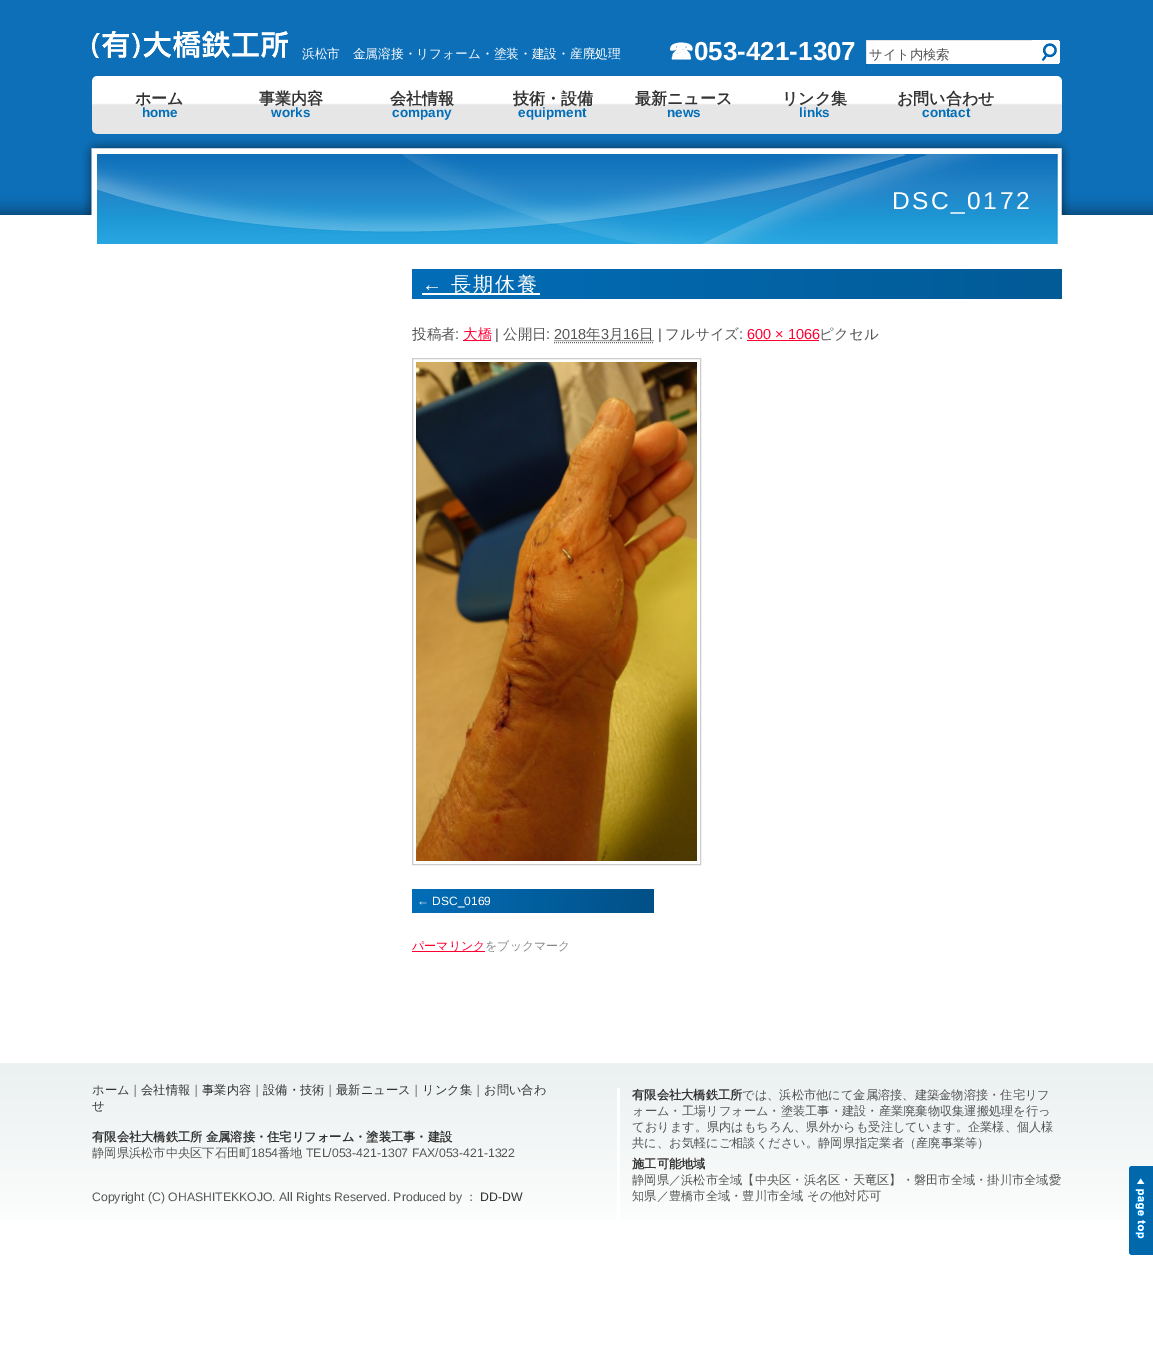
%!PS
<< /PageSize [1153 1355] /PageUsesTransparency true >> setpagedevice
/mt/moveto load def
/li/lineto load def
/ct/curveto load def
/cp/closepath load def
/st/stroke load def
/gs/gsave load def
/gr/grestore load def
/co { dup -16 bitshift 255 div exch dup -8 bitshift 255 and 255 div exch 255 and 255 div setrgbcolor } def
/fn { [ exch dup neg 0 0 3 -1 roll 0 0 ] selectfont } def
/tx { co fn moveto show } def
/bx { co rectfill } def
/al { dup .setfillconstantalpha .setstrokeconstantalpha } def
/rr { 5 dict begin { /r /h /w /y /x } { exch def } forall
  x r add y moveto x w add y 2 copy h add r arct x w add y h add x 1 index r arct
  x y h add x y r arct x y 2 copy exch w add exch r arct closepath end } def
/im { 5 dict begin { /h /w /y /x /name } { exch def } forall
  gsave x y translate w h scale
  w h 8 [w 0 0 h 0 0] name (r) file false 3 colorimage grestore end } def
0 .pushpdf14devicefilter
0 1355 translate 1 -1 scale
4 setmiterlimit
0 0 1153 1355 16#FFFFFF bx
(media/1.raw) 0 0 1153 215 im
(media/2.raw) 82 139 989 76 im
(media/3.raw) 92 31 196 27 im
866 40 166 24 16#FFFFFF bx
gs
866 40 166 30 rectclip
0.1 al
16#000000 co
767 -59 mt 1131 -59 li 1131 169 li 767 169 li cp 867 41 mt 1033 41 li 1033 71 li 867 71 li cp eofill
gr
(media/4.raw) 1032 40 28 24 im
92 76 970 58 16#036EB8 bx
(media/5.raw) 92 76 970 58 im
(media/6.raw) 97 154 961 90 im
gs 415 269 mt 1062 269 li 1062 299 li 415 299 li 413.5 299 412 297.5 412 296 ct 412 272 li 412 270.5 413.5 269 415 269 ct cp clip newpath
<< /ShadingType 2 /ColorSpace /DeviceRGB /Coords [412 269 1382 299] /Extend [true true] /Function << /FunctionType 2 /Domain [0 1] /C0 [.012 .431 .722] /C1 [.004 .314 .525] /N 1 >> >> shfill gr
422 293 118 2 16#FFFFFF bx
463 340 28 1 16#FF0033 bx
16#666666 co
[1 1] 0 setdash
554 342.5 mt 654 342.5 li st
16#555555 co
554.5 340.5 mt 653.5 340.5 li st
747 340 72 1 16#FF0033 bx
16#CCCCCC co
[] 0 setdash
412.5 358.5 288 506 rectstroke
(media/7.raw) 416 362 281 499 im
gs 412 889 242 24 3 rr clip newpath
<< /ShadingType 2 /ColorSpace /DeviceRGB /Coords [412 889 654 913] /Extend [true true] /Function << /FunctionType 2 /Domain [0 1] /C0 [.012 .431 .722] /C1 [.004 .314 .525] /N 1 >> >> shfill gr
412 951 73 1 16#FF0033 bx
gs 0 1063 mt 1153 1063 li 1153 1220 li 0 1220 li cp clip newpath
<< /ShadingType 2 /ColorSpace /DeviceRGB /Coords [0 1063 0 1243] /Extend [true true] /Function << /FunctionType 2 /Domain [0 1] /C0 [.922 .941 .941] /C1 [1 1 1] /N 1 >> >> shfill gr
(media/8.raw) 1129 1166 24 89 im
617 1088 3 135 16#FFFFFF bx
(浜松市　金属溶接・リフォーム・塗装・建設・産廃処理) 302 58 /WenQuanYiZenHei-Medium 12.7 16#FFFFFF tx
(☎) 668 60 /WenQuanYiZenHei-Bold 26 16#FFFFFF tx
(053-421-1307) 694 60 /LiberationSans-Bold 26 16#FFFFFF tx
(サイト内検索) 869 59 /WenQuanYiZenHei-Medium 13.25 16#555555 tx
(ホーム) 135 104 /WenQuanYiZenHei-Bold 16 16#333333 tx
(home) 142 117 /LiberationSans-Bold 13.5 16#036EB8 tx
(事業内容) 259 104 /WenQuanYiZenHei-Bold 16 16#333333 tx
(works) 271 117 /LiberationSans-Bold 13.5 16#036EB8 tx
(会社情報) 390 104 /WenQuanYiZenHei-Bold 16 16#333333 tx
(company) 392 117 /LiberationSans-Bold 13.5 16#036EB8 tx
(技術・設備) 513 104 /WenQuanYiZenHei-Bold 16 16#333333 tx
(equipment) 518 117 /LiberationSans-Bold 13.5 16#036EB8 tx
(最新ニュース) 635 104 /WenQuanYiZenHei-Bold 16 16#333333 tx
(news) 667 117 /LiberationSans-Bold 13.5 16#036EB8 tx
(リンク集) 782 104 /WenQuanYiZenHei-Bold 16 16#333333 tx
(links) 799 117 /LiberationSans-Bold 13.5 16#036EB8 tx
(お問い合わせ) 897 104 /WenQuanYiZenHei-Bold 16 16#333333 tx
(contact) 922 117 /LiberationSans-Bold 13.5 16#036EB8 tx
/LiberationSans-Regular 24.5 fn
16#FFFFFF co
892 209 mt 2.5 0 (DSC_0172) ashow
/LiberationSans-Regular 20 fn
422 291 mt 2 0 (←) ashow
/WenQuanYiZenHei-Medium 20 fn
451 291 mt 2 0 (長期休養) ashow
(投稿者) 412 339 /WenQuanYiZenHei-Medium 14.5 16#555555 tx
(:) 455 339 /LiberationSans-Regular 14.5 16#555555 tx
(大橋) 463 339 /WenQuanYiZenHei-Medium 14.5 16#FF0033 tx
(|) 495 339 /LiberationSans-Regular 14.5 16#555555 tx
(公開日) 503 339 /WenQuanYiZenHei-Medium 14.5 16#555555 tx
(: 2018) 546 339 /LiberationSans-Regular 14.5 16#555555 tx
(年) 586 339 /WenQuanYiZenHei-Medium 14.5 16#555555 tx
(3) 601 339 /LiberationSans-Regular 14.5 16#555555 tx
(月) 609 339 /WenQuanYiZenHei-Medium 14.5 16#555555 tx
(16) 623 339 /LiberationSans-Regular 14.5 16#555555 tx
(日) 639 339 /WenQuanYiZenHei-Medium 14.5 16#555555 tx
(|) 658 339 /LiberationSans-Regular 14.5 16#555555 tx
(フルサイズ) 665 339 /WenQuanYiZenHei-Medium 14.5 16#555555 tx
(:) 739 339 /LiberationSans-Regular 14.5 16#555555 tx
(600 × 1066) 747 339 /LiberationSans-Regular 14.5 16#FF0033 tx
(ピクセル) 819 339 /WenQuanYiZenHei-Medium 14.5 16#555555 tx
(← DSC_0169) 417 905 /LiberationSans-Regular 12 16#FFFFFF tx
(パーマリンク) 412 950 /WenQuanYiZenHei-Medium 12 16#FF0033 tx
(をブックマーク) 485 950 /WenQuanYiZenHei-Medium 12 16#888888 tx
(ホーム) 92 1094 /WenQuanYiZenHei-Medium 12.25 16#333333 tx
(｜) 129 1094 /WenQuanYiZenHei-Medium 12.25 16#555555 tx
(会社情報) 141 1094 /WenQuanYiZenHei-Medium 12.25 16#333333 tx
(｜) 190 1094 /WenQuanYiZenHei-Medium 12.25 16#555555 tx
(事業内容) 202 1094 /WenQuanYiZenHei-Medium 12.25 16#333333 tx
(｜) 251 1094 /WenQuanYiZenHei-Medium 12.25 16#555555 tx
(設備・技術) 263 1094 /WenQuanYiZenHei-Medium 12.25 16#333333 tx
(｜) 324 1094 /WenQuanYiZenHei-Medium 12.25 16#555555 tx
(最新ニュース) 336 1094 /WenQuanYiZenHei-Medium 12.25 16#333333 tx
(｜) 410 1094 /WenQuanYiZenHei-Medium 12.25 16#555555 tx
(リンク集) 422 1094 /WenQuanYiZenHei-Medium 12.25 16#333333 tx
(｜) 472 1094 /WenQuanYiZenHei-Medium 12.25 16#555555 tx
(お問い合わ) 484 1094 /WenQuanYiZenHei-Medium 12.25 16#333333 tx
(せ) 92 1110 /WenQuanYiZenHei-Medium 12.25 16#333333 tx
(有限会社大橋鉄工所 金属溶接・住宅リフォーム・塗装工事・建設) 92 1141 /WenQuanYiZenHei-Bold 12.25 16#333333 tx
(静岡県浜松市中央区下石田町) 92 1157 /WenQuanYiZenHei-Medium 12.25 16#555555 tx
(1854) 251 1157 /LiberationSans-Regular 12.25 16#555555 tx
(番地) 278 1157 /WenQuanYiZenHei-Medium 12.25 16#555555 tx
(TEL/053-421-1307 FAX/053-421-1322) 306 1157 /LiberationSans-Regular 12.25 16#555555 tx
(Copyright \(C\) OHASHITEKKOJO. All Rights Reserved. Produced by) 92 1201 /LiberationSans-Regular 12.25 16#555555 tx
(：) 465 1201 /WenQuanYiZenHei-Medium 12.25 16#555555 tx
(DD-DW) 480 1201 /LiberationSans-Regular 12.25 16#333333 tx
(有限会社大橋鉄工所) 632 1099 /WenQuanYiZenHei-Bold 12.25 16#333333 tx
(では、浜松市他にて金属溶接、建築金物溶接・住宅リフ) 742 1099 /WenQuanYiZenHei-Medium 12.25 16#555555 tx
(ォーム・工場リフォーム・塗装工事・建設・産業廃棄物収集運搬処理を行っ) 632 1115 /WenQuanYiZenHei-Medium 12.25 16#555555 tx
(ております。県内はもちろん、県外からも受注しています。企業様、個人様) 632 1131 /WenQuanYiZenHei-Medium 12.25 16#555555 tx
(共に、お気軽にご相談ください。静岡県指定業者（産廃事業等）) 632 1147 /WenQuanYiZenHei-Medium 12.25 16#555555 tx
(施工可能地域) 632 1168 /WenQuanYiZenHei-Bold 12.25 16#333333 tx
(静岡県／浜松市全域【中央区・浜名区・天竜区】・磐田市全域・掛川市全域愛) 632 1184 /WenQuanYiZenHei-Medium 12.25 16#555555 tx
(知県／豊橋市全域・豊川市全域 その他対応可) 632 1200 /WenQuanYiZenHei-Medium 12.25 16#555555 tx
.poppdf14devicefilter showpage
